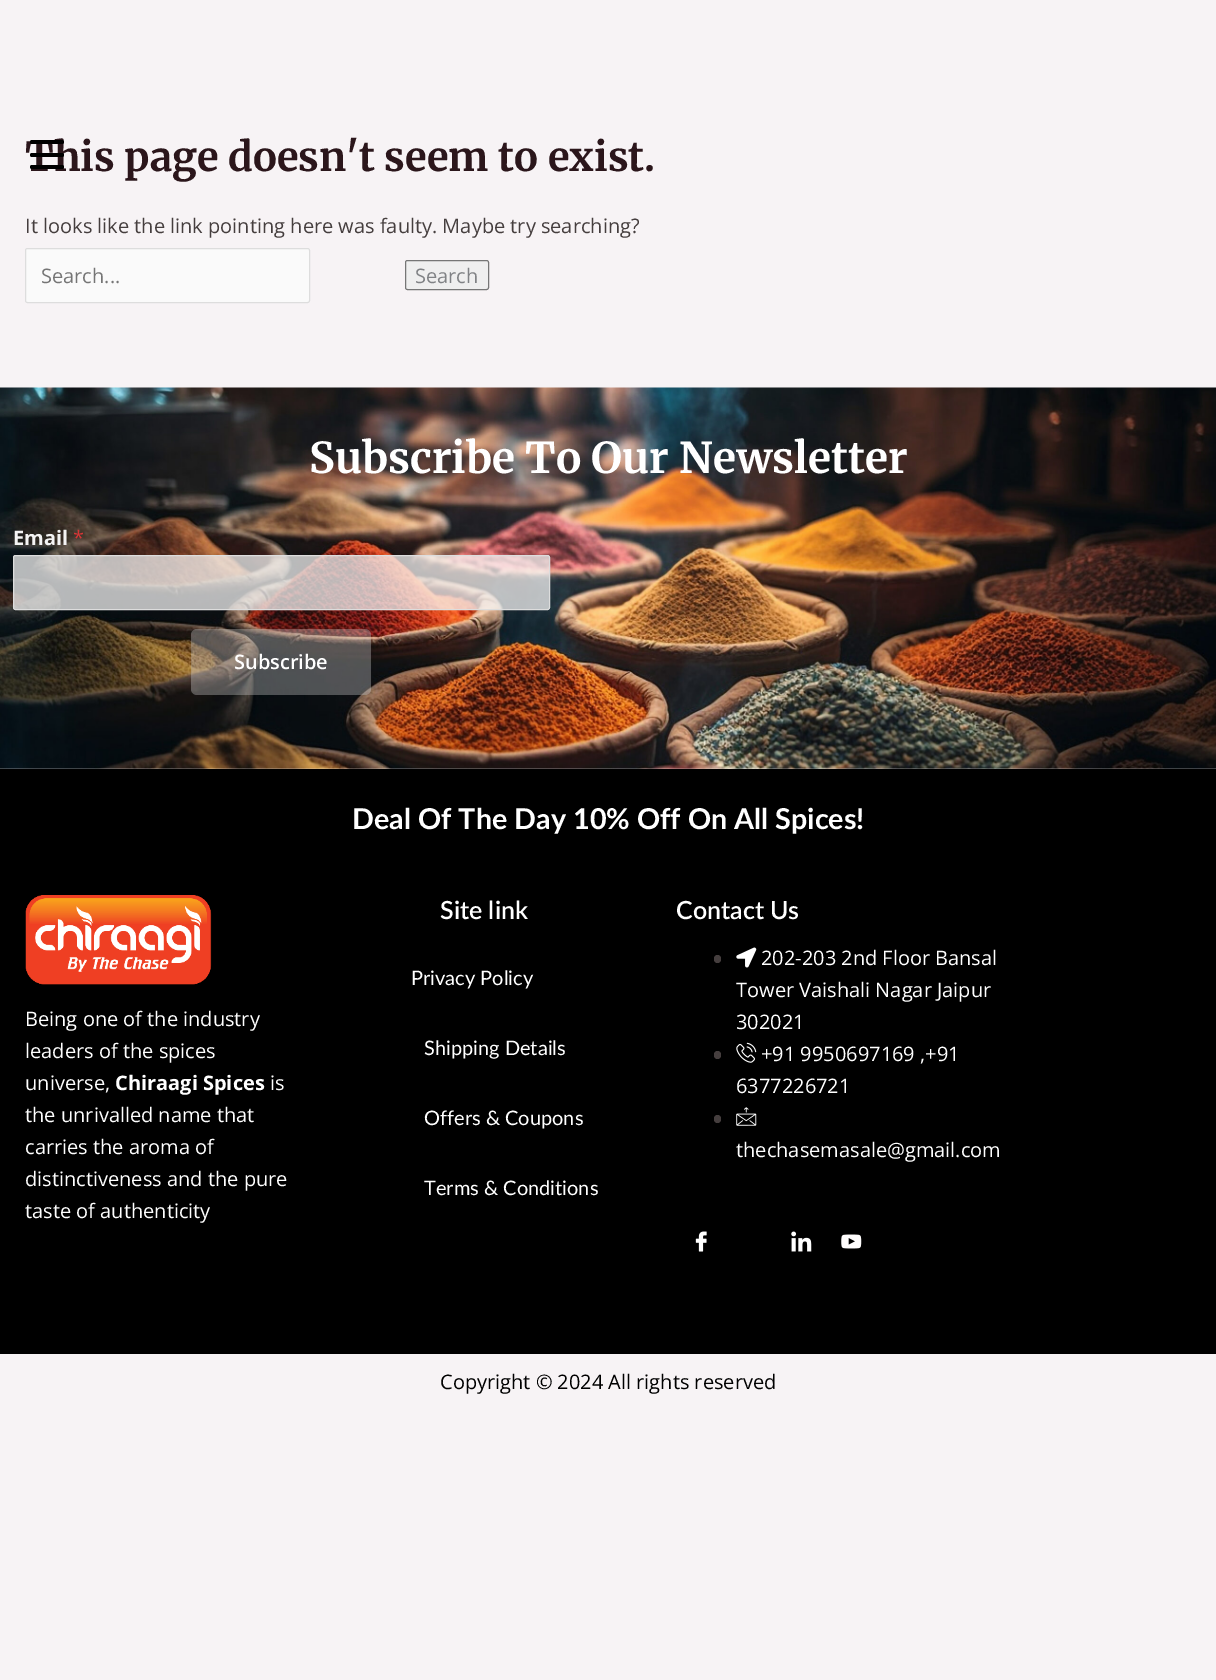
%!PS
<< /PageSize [1216 1680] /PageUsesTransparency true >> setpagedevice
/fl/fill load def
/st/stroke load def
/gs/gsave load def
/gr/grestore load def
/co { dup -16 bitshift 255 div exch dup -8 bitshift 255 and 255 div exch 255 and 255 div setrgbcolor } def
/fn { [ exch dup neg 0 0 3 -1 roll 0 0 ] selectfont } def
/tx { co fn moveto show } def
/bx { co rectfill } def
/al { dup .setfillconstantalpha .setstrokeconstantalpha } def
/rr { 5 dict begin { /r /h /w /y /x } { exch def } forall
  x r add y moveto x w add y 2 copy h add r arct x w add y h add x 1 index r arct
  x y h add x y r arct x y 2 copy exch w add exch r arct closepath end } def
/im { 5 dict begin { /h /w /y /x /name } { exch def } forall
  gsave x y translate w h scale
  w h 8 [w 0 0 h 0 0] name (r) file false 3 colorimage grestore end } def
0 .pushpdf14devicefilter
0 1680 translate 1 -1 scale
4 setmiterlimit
0 0 1216 1680 16#F7F3F5 bx
16#FAFAFA co
25.5 248.5 284 54 2 rr gs fl gr
16#DDDDDD co
st
16#EFEFEF co
405.5 260.5 83 29 2 rr gs fl gr
16#767676 co
st
(media/1.raw) 0 387 1216 382 im
0.73 al
16#F7F7F7 co
13.5 555.5 536 54 2 rr fl
1 al
16#DDDDDD co
13.5 555.5 536 54 2 rr st
0.35 al
16#D0D0D0 co
191 629 180 66 6 rr fl
1 al
0 769 1216 585 16#000000 bx
(media/2.raw) 25 895 187 90 im
16#453E3E co
714 955 7 8 3.5 rr fl
(media/3.raw) 736 947 21 21 im
714 1051 7 8 3.5 rr fl
(media/4.raw) 736 1042 21 21 im
714 1115 7 8 3.5 rr fl
(media/5.raw) 736 1107 21 19 im
(media/6.raw) 695 1231 12 21 im
(media/7.raw) 791 1231 21 21 im
(media/8.raw) 841 1234 21 15 im
(This page doesn't seem to exist.) 25 171 /Merriweather-Bold 40 16#2B161B tx
(It looks like the link pointing here was faulty. Maybe try searching?) 25 233 /OpenSans-Regular 20 16#453E3E tx
(Search...) 41 283 /OpenSans-Regular 20 16#757575 tx
(Search) 415 283 /OpenSans-Regular 20 16#808285 tx
(Subscribe To Our Newsletter) 309 473 /Merriweather-Bold 42.5 16#FFFFFF tx
(Email) 13 545 /OpenSans-Bold 20 16#F4F4F4 tx
(*) 73 545 /OpenSans-Regular 20 16#D63637 tx
(Subscribe) 234 669 /OpenSans-SemiBold 20 16#FFFFFF tx
(Deal Of The Day 10% Off On All Spices!) 352 829 /Lato-Bold 28.75 16#FFFFFF tx
(Being one of the industry) 25 1026 /OpenSans-Regular 20 16#FFFFFF tx
(leaders of the spices) 25 1058 /OpenSans-Regular 20 16#FFFFFF tx
(universe,) 25 1090 /OpenSans-Regular 20 16#FFFFFF tx
(Chiraagi Spices) 115 1090 /OpenSans-Bold 20 16#FFFFFF tx
(is) 270 1090 /OpenSans-Regular 20 16#FFFFFF tx
(the unrivalled name that) 25 1122 /OpenSans-Regular 20 16#FFFFFF tx
(carries the aroma of) 25 1154 /OpenSans-Regular 20 16#FFFFFF tx
(distinctiveness and the pure) 25 1186 /OpenSans-Regular 20 16#FFFFFF tx
(taste of authenticity) 25 1218 /OpenSans-Regular 20 16#FFFFFF tx
(Site link) 440 919 /Lato-SemiBold 25 16#FFFFFF tx
(Privacy Policy) 411 985 /Lato-Regular 20 16#FFFFFF tx
(Shipping Details) 424 1055 /Lato-Regular 20 16#FFFFFF tx
(Offers & Coupons) 424 1125 /Lato-Regular 20 16#FFFFFF tx
(Terms & Conditions) 424 1195 /Lato-Regular 20 16#FFFFFF tx
(Contact Us) 676 919 /Lato-SemiBold 25 16#FFFFFF tx
(202-203 2nd Floor Bansal) 761 965 /OpenSans-Regular 20 16#FFFFFF tx
(Tower Vaishali Nagar Jaipur) 736 997 /OpenSans-Regular 20 16#FFFFFF tx
(302021) 736 1029 /OpenSans-Regular 20 16#FFFFFF tx
(+91 9950697169 ,+91) 761 1061 /OpenSans-Regular 20 16#FFFFFF tx
(6377226721) 736 1093 /OpenSans-Regular 20 16#FFFFFF tx
(thechasemasale@gmail.com) 736 1157 /OpenSans-Regular 20 16#FFFFFF tx
(Copyright © 2024 All rights reserved) 440 1389 /OpenSans-Regular 20 16#000000 tx
30 153 34 4 2 rr fl
30 140 34 4 2 rr fl
30 165 34 4 2 rr fl
.poppdf14devicefilter showpage
